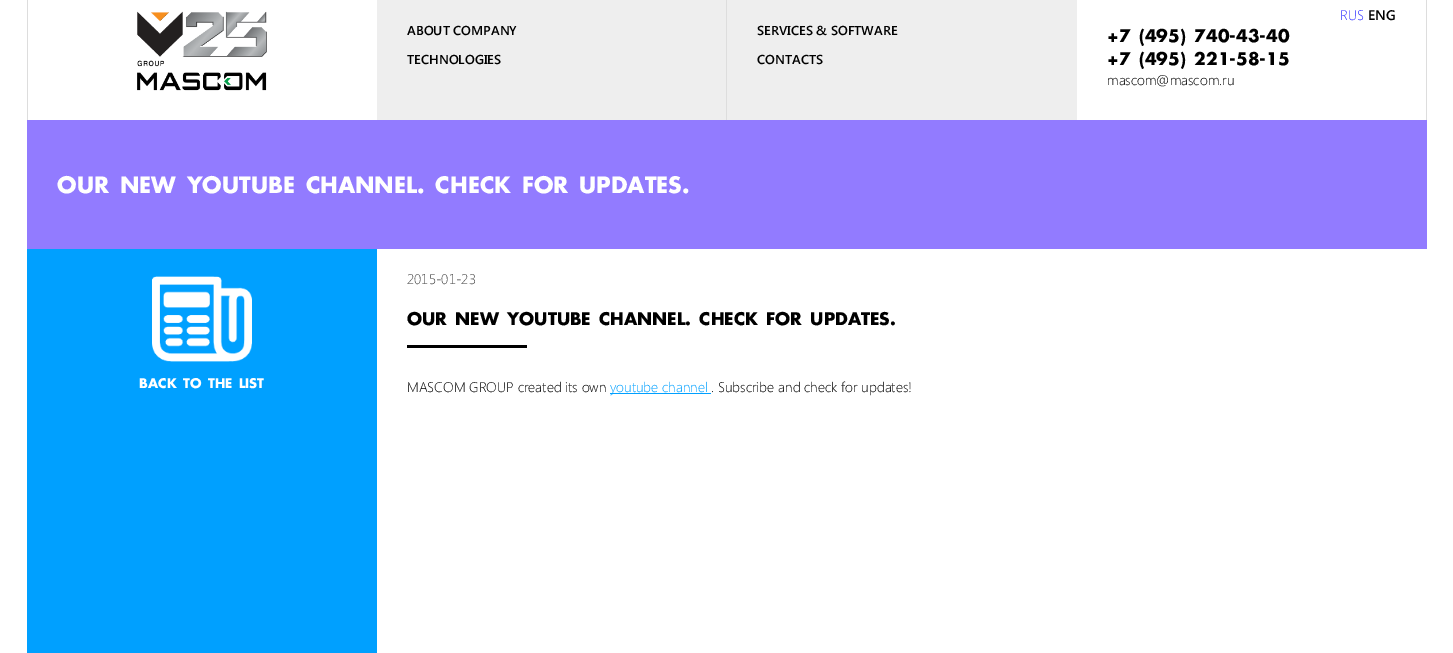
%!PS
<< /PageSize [1453 653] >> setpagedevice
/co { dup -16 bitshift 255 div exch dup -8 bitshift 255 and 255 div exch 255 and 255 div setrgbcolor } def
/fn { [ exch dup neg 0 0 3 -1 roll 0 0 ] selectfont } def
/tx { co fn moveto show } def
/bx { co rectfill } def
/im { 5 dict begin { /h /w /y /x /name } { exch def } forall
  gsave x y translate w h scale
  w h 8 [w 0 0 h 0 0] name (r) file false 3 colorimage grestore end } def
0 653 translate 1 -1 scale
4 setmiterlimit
0 0 1453 653 16#FFFFFF bx
27 0 1 120 16#DDDDDD bx
(media/1.raw) 137 11 130 80 im
377 0 349 120 16#EEEEEE bx
726 0 1 120 16#DDDDDD bx
727 0 350 120 16#EEEEEE bx
1426 0 1 120 16#DDDDDD bx
27 120 1400 129 16#927BFF bx
27 249 350 404 16#00A0FF bx
(media/2.raw) 152 276 100 86 im
407 345 120 3 16#000000 bx
610 393 101 1 16#00A0FF bx
(ABOUT COMPANY) 407 35 /SegoeUI-SemiBold 13 16#000000 tx
(TECHNOLOGIES) 407 64 /SegoeUI-SemiBold 13 16#000000 tx
(SERVICES & SOFTWARE) 757 35 /SegoeUI-SemiBold 13 16#000000 tx
(CONTACTS) 757 64 /SegoeUI-SemiBold 13 16#000000 tx
(RUS) 1340 20 /SegoeUI-Light 14 16#3333FF tx
(ENG) 1368 20 /SegoeUI-SemiBold 14 16#000000 tx
(+7 \(495\) 740-43-40) 1107 42 /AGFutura-Bold 17 16#000000 tx
(+7 \(495\) 221-58-15) 1107 65 /AGFutura-Bold 17 16#000000 tx
(mascom@mascom.ru) 1107 85 /SegoeUI-Light 14 16#000000 tx
(OUR NEW YOUTUBE CHANNEL. CHECK FOR UPDATES.) 57 193 /AGFutura-Bold 22 16#FFFFFF tx
(BACK TO THE LIST) 139 388 /AGFutura-Bold 13 16#FFFFFF tx
(2015-01-23) 407 284 /SegoeUI-Light 14 16#444444 tx
(OUR NEW YOUTUBE CHANNEL. CHECK FOR UPDATES.) 407 325 /AGFutura-Bold 17 16#000000 tx
(MASCOM GROUP created its own) 407 392 /SegoeUI-Light 14 16#000000 tx
(youtube channel) 610 392 /SegoeUI-Light 14 16#00A0FF tx
(. Subscribe and check for updates!) 711 392 /SegoeUI-Light 14 16#000000 tx
showpage
